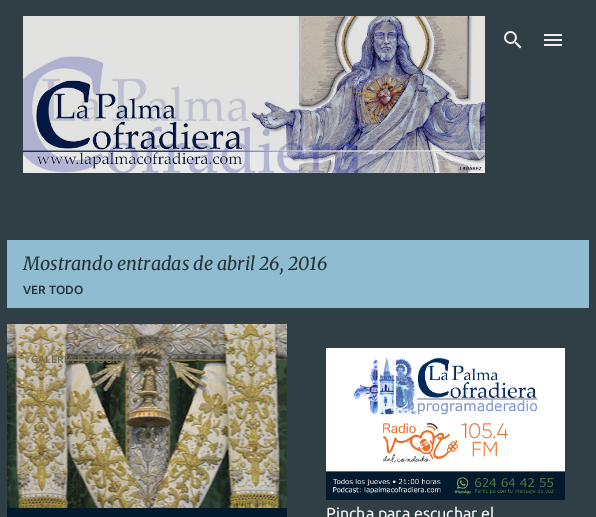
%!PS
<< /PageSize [596 517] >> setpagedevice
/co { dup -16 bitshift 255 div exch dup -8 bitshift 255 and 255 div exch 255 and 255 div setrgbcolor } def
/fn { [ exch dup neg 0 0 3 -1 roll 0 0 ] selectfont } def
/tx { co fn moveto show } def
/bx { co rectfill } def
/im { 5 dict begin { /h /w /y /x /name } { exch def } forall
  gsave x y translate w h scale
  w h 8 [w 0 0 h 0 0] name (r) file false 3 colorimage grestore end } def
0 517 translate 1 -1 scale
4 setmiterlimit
0 0 596 517 16#303F46 bx
(media/1.raw) 23 16 462 157 im
(media/2.raw) 504 31 18 18 im
(media/3.raw) 544 34 18 12 im
7 240 582 68 16#90BCD1 bx
7 508 280 9 16#03192C bx
(media/4.raw) 7 324 280 184 im
(media/5.raw) 326 348 239 152 im
(Mostrando entradas de abril 26, 2016) 23 270 /Merriweather-Italic 18 16#263238 tx
(VER TODO) 23 294 /Ubuntu-Medium 12 16#263238 tx
(GALERÍA FOTOGRÁFICA) 31 363 /Ubuntu-Medium 10.5 16#756F5A tx
(Pincha para escuchar el) 326 519 /Ubuntu-Regular 16 16#FFFFFF tx
showpage
